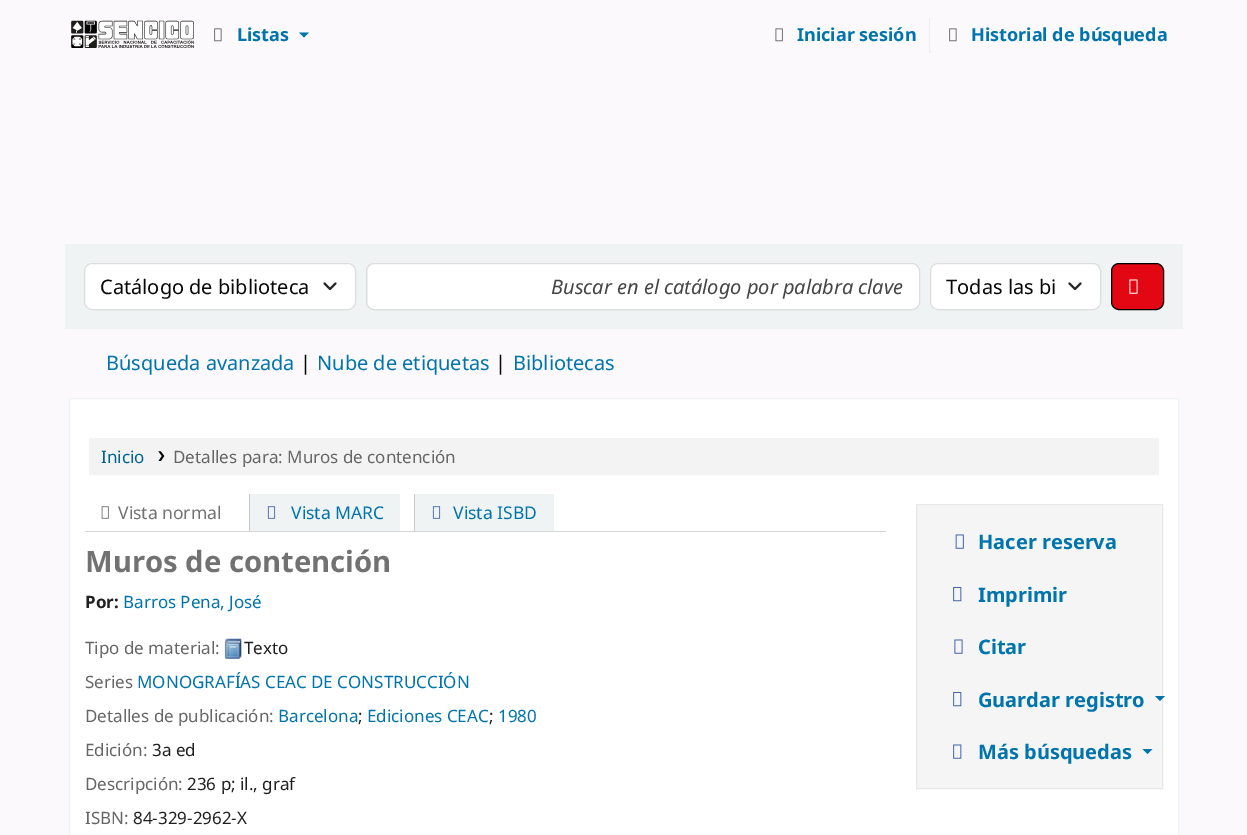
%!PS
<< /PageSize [1247 835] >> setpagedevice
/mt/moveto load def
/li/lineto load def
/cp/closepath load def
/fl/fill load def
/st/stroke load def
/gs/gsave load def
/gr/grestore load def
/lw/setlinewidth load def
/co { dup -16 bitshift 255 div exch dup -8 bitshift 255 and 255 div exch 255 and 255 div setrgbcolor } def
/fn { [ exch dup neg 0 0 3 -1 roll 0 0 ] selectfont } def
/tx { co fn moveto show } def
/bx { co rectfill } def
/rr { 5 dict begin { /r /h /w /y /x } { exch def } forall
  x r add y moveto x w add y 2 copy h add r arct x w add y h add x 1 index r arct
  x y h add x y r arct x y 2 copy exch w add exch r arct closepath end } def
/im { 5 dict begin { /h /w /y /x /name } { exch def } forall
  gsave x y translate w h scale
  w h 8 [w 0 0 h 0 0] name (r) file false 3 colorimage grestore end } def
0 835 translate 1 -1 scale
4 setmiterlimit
0 0 1247 835 16#FCF9FC bx
(media/1.raw) 71 20 123 28 im
(media/2.raw) 214 28 8 14 im
16#0074AD co
299 32.5 mt 309 32.5 li 304 37.5 li cp fl
(media/3.raw) 775 28 8 14 im
929 18 3 1 16#EEEEEE bx
930 18 1 1 16#FCF9FC bx
929 51 3 1 16#EEEEEE bx
929 18 1 35 16#EEEEEE bx
(media/2.raw) 949 28 8 14 im
65 244 1118 85 16#F0F3F3 bx
16#FFFFFF co
84 263 272 47 8 rr fl
16#252525 co
1.9 lw
1 setlinecap
1 setlinejoin
324.5 283.5 mt 330 289 li 335.5 283.5 li st
16#DDDDDD co
1 lw
0 setlinecap
0 setlinejoin
84.5 263.5 271 46 7.5 rr st
16#FFFFFF co
368 264 551 45 6 rr fl
16#DDDDDD co
366.5 263.5 553 46 7.5 rr st
16#FFFFFF co
930 263 171 47 8 rr fl
16#252525 co
1.9 lw
1 setlinecap
1 setlinejoin
1069.5 283.5 mt 1075 289 li 1080.5 283.5 li st
16#DDDDDD co
1 lw
0 setlinecap
0 setlinejoin
930.5 263.5 170 46 7.5 rr st
16#E30613 co
1111.5 263.5 52 46 7.5 rr gs fl gr
16#000000 co
st
(media/4.raw) 1129 279 9 15 im
16#FFFFFF co
69.5 398.5 mt 1178.5 398.5 li 1178.5 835.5 li 69.5 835.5 li cp gs fl gr
16#F0F3F3 co
st
89 438 1070 37 16#F3F3F3 bx
(media/5.raw) 158 451 7 10 im
85 531 801 1 16#D6D6D6 bx
(media/6.raw) 101 506 8 13 im
250 494 150 37 16#F0F3F3 bx
249 494 1 37 16#C9C9C9 bx
(media/7.raw) 267 506 9 13 im
415 494 139 37 16#F0F3F3 bx
414 494 1 37 16#C9C9C9 bx
(media/7.raw) 432 506 9 13 im
(media/8.raw) 224 638 18 21 im
16#F5F5F5 co
916.5 504.5 mt 1162.5 504.5 li 1162.5 788.5 li 916.5 788.5 li cp gs fl gr
16#E8E8E8 co
st
(media/9.raw) 955 534 9 15 im
(media/10.raw) 953 586 9 16 im
(media/11.raw) 954 639 9 15 im
(media/10.raw) 953 691 9 16 im
16#0074AD co
1155 696 mt 1165 696 li 1160 701 li cp fl
(media/12.raw) 953 744 9 15 im
1142.5 749 mt 1152.5 749 li 1147.5 754 li cp fl
(Listas) 237 41 /NotoSans-Bold 18 16#0074AD tx
(Iniciar sesión) 797 41 /NotoSans-Bold 18 16#0074AD tx
(Historial de búsqueda) 971 41 /NotoSans-Bold 18 16#0074AD tx
(Catálogo de biblioteca) 100 294 /NotoSans-Regular 20 16#070707 tx
(Buscar en el catálogo por palabra clave) 551 294 /NotoSans-Italic 20 16#454545 tx
(Todas las bi) 946 294 /NotoSans-Regular 20 16#070707 tx
(Búsqueda avanzada) 106 370 /NotoSans-Regular 20 16#0074AD tx
(|) 300 370 /NotoSans-Regular 20 16#070707 tx
(Nube de etiquetas) 317 370 /NotoSans-Regular 20 16#0074AD tx
(|) 495 370 /NotoSans-Regular 20 16#070707 tx
(Bibliotecas) 513 370 /NotoSans-Regular 20 16#0074AD tx
(Inicio) 101 463 /NotoSans-Regular 17 16#006394 tx
(Detalles para: Muros de contención) 173 463 /NotoSans-Regular 17 16#666666 tx
(Vista normal) 118 519 /NotoSans-Regular 17.5 16#727272 tx
(Vista MARC) 291 519 /NotoSans-Regular 17.5 16#0074AD tx
(Vista ISBD) 453 519 /NotoSans-Regular 17.5 16#0074AD tx
(Muros de contención) 85 572 /NotoSans-Bold 29.25 16#727272 tx
(Por:) 85 608 /NotoSans-Bold 17 16#202020 tx
(Barros Pena, José) 123 608 /NotoSans-Regular 17 16#0074AD tx
(Tipo de material:) 85 654 /NotoSans-Regular 17 16#666666 tx
(Texto) 244 654 /NotoSans-Regular 17 16#202020 tx
(Series) 85 688 /NotoSans-Regular 17 16#666666 tx
(MONOGRAFÍAS CEAC DE CONSTRUCCIÓN) 137 688 /NotoSans-Regular 17 16#0074AD tx
(Detalles de publicación:) 85 722 /NotoSans-Regular 17 16#666666 tx
(Barcelona) 278 722 /NotoSans-Regular 17 16#0074AD tx
(;) 358 722 /NotoSans-Regular 17 16#202020 tx
(Ediciones CEAC) 367 722 /NotoSans-Regular 17 16#0074AD tx
(;) 489 722 /NotoSans-Regular 17 16#202020 tx
(1980) 498 722 /NotoSans-Regular 17 16#0074AD tx
(Edición:) 85 756 /NotoSans-Regular 17 16#666666 tx
(3a ed) 152 756 /NotoSans-Regular 17 16#202020 tx
(Descripción:) 85 790 /NotoSans-Regular 17 16#666666 tx
(236 p; il., graf) 187 790 /NotoSans-Regular 17 16#202020 tx
(ISBN:) 85 824 /NotoSans-Regular 17 16#666666 tx
(84-329-2962-X) 133 824 /NotoSans-Regular 17 16#202020 tx
(Hacer reserva) 978 549 /NotoSans-Bold 20 16#0074AD tx
(Imprimir) 978 602 /NotoSans-Bold 20 16#0074AD tx
(Citar) 978 654 /NotoSans-Bold 20 16#0074AD tx
(Guardar registro) 978 707 /NotoSans-Bold 20 16#0074AD tx
(Más búsquedas) 978 759 /NotoSans-Bold 20 16#0074AD tx
showpage
